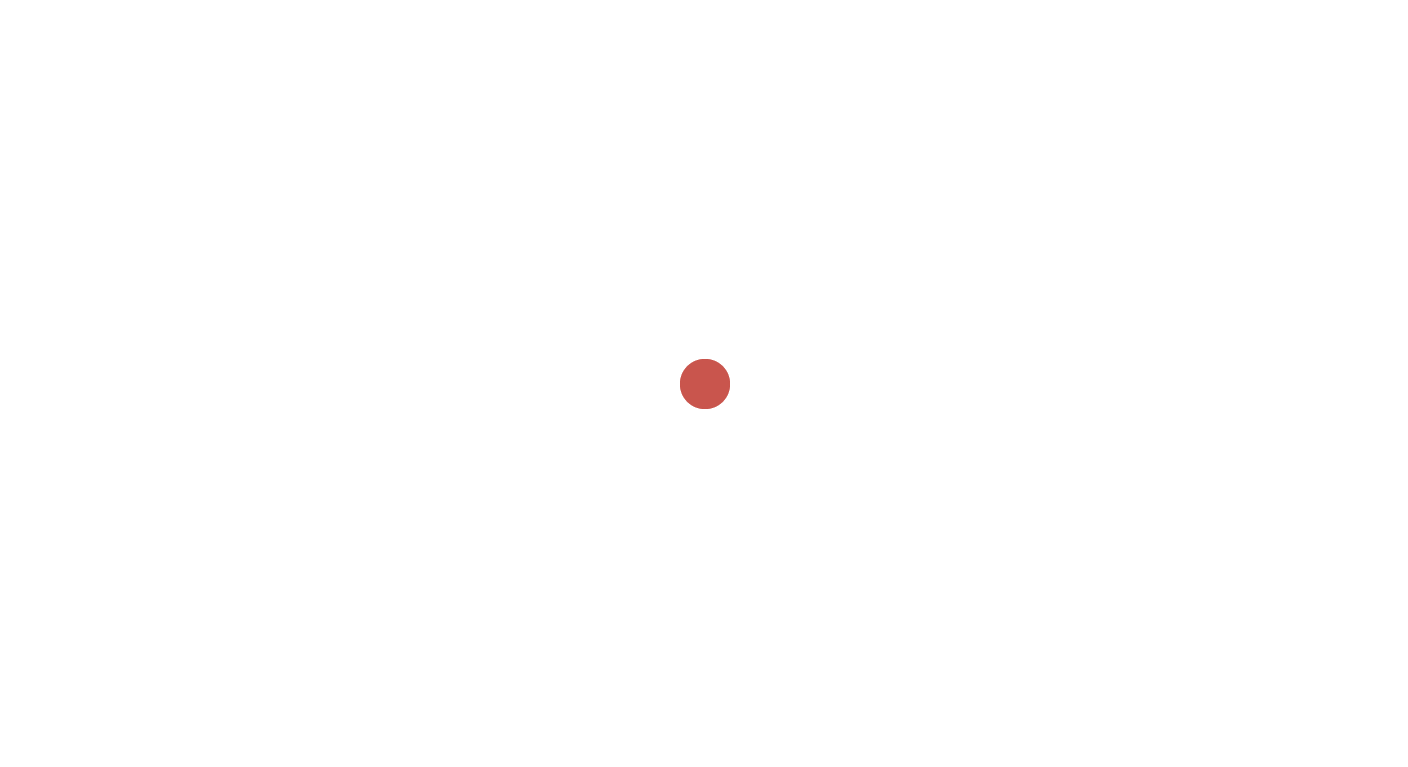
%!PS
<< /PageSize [1408 767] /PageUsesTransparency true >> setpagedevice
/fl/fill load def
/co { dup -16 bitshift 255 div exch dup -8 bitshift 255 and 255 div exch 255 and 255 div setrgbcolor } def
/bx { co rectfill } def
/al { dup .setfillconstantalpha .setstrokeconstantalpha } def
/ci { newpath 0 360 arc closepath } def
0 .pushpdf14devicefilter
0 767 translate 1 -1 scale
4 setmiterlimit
0 0 1408 767 16#FFFFFF bx
16#D98680 co
705 384 25 ci fl
0.6 al
16#BF352B co
705 384 25 ci fl
.poppdf14devicefilter showpage
